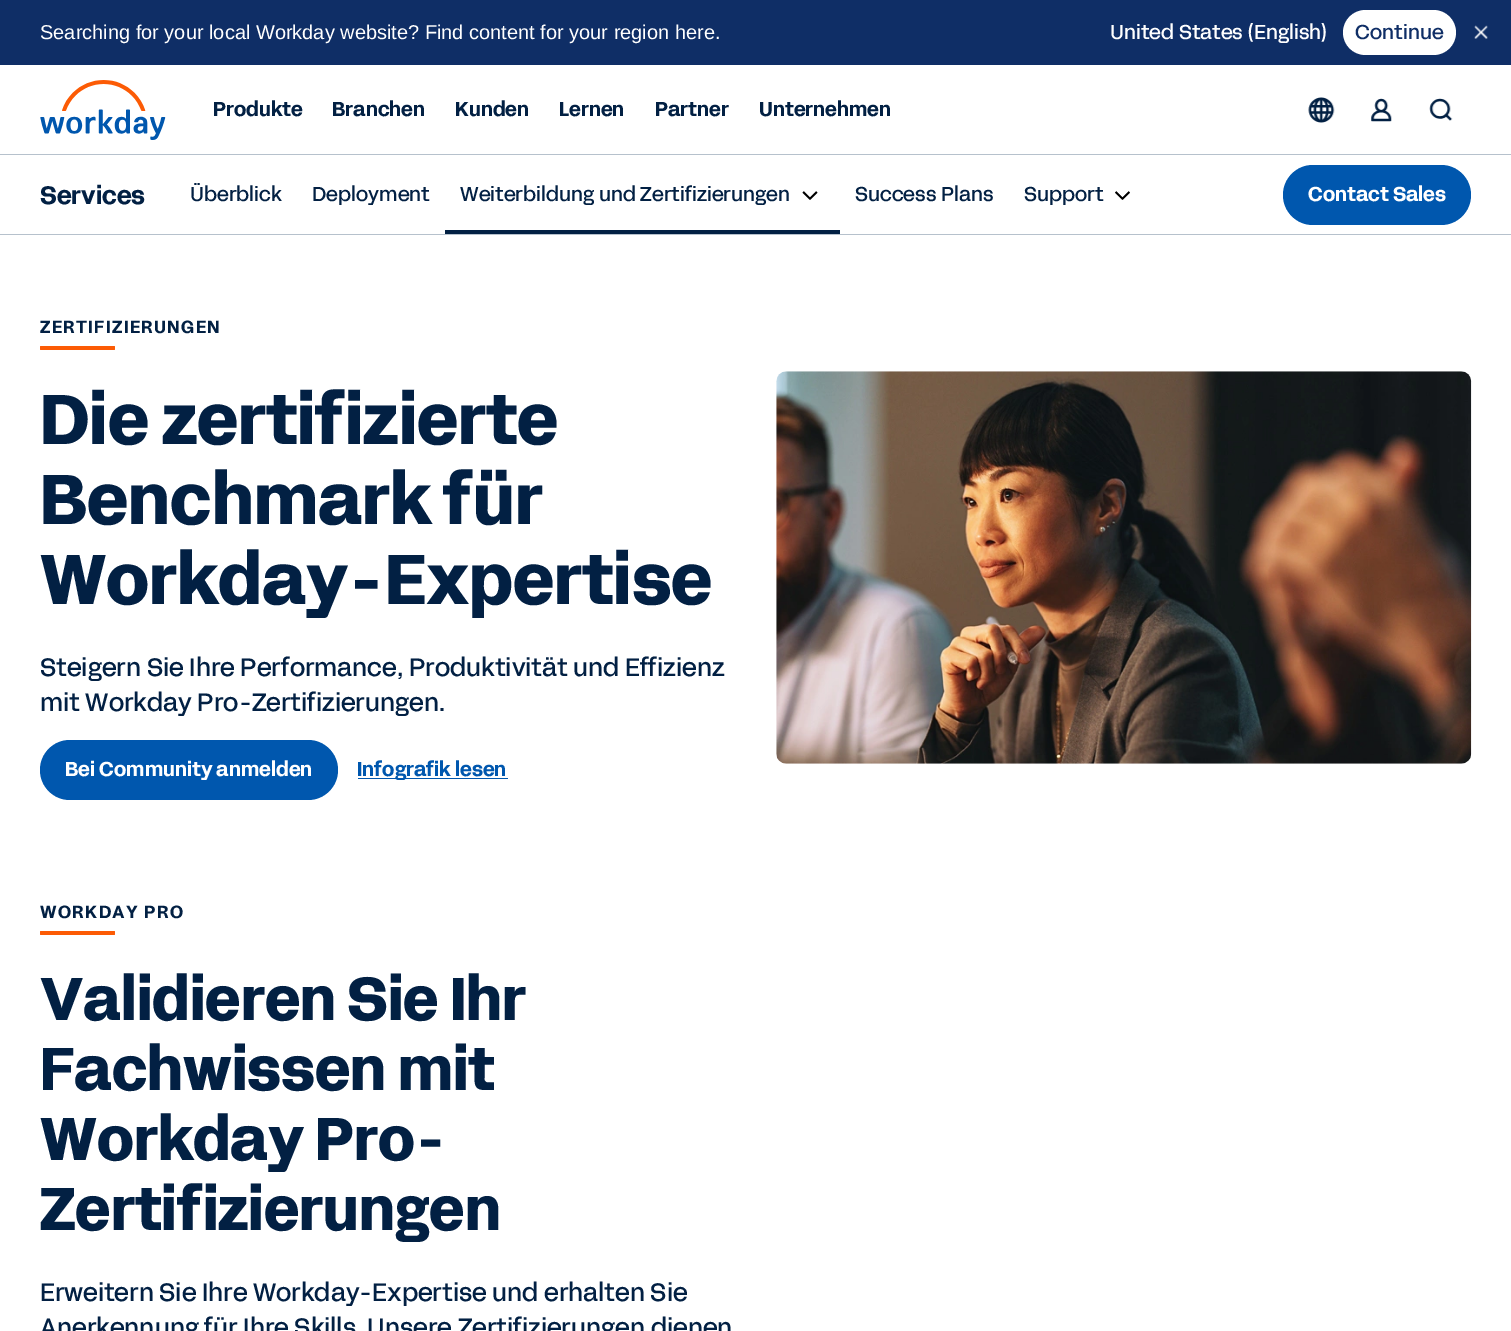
%!PS
<< /PageSize [1511 1331] >> setpagedevice
/mt/moveto load def
/fl/fill load def
/co { dup -16 bitshift 255 div exch dup -8 bitshift 255 and 255 div exch 255 and 255 div setrgbcolor } def
/fn { [ exch dup neg 0 0 3 -1 roll 0 0 ] selectfont } def
/tx { co fn moveto show } def
/bx { co rectfill } def
/rr { 5 dict begin { /r /h /w /y /x } { exch def } forall
  x r add y moveto x w add y 2 copy h add r arct x w add y h add x 1 index r arct
  x y h add x y r arct x y 2 copy exch w add exch r arct closepath end } def
/im { 5 dict begin { /h /w /y /x /name } { exch def } forall
  gsave x y translate w h scale
  w h 8 [w 0 0 h 0 0] name (r) file false 3 colorimage grestore end } def
0 1331 translate 1 -1 scale
4 setmiterlimit
0 0 1511 1331 16#FFFFFF bx
0 154 1511 1 16#B6C1CC bx
0 0 1511 65 16#0F2E66 bx
16#FFFFFF co
1343 10 113 45 22.5 rr fl
(media/1.raw) 1474 25 14 14 im
(media/2.raw) 40 80 126 60 im
(media/3.raw) 1308 97 27 26 im
(media/4.raw) 1371 98 21 24 im
(media/5.raw) 1429 98 24 23 im
0 234 1511 1 16#B6C1CC bx
(media/6.raw) 802 191 16 9 im
445 230 395 4 16#022043 bx
(media/7.raw) 1115 191 15 9 im
16#0057AE co
1283 165 188 60 30 rr fl
16#FC5B05 co
40 346 75 4 1 rr fl
16#0057AE co
40 740 298 60 30 rr fl
358 778 150 1 16#0057AE bx
(media/8.raw) 776 371 696 393 im
16#FC5B05 co
40 931 75 4 1 rr fl
(Searching for your local Workday website? Find content for your region here.) 40 39 /LiberationSans-Regular 20 16#FFFFFF tx
(United States \(English\)) 1110 39 /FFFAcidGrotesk-Regular 20 16#FFFFFF tx
(Continue) 1355 39 /FFFAcidGrotesk-Regular 20 16#0F2E66 tx
(Produkte) 213 116 /FFFAcidGrotesk-Bold 20 16#022043 tx
(Branchen) 332 116 /FFFAcidGrotesk-Bold 20 16#022043 tx
(Kunden) 455 116 /FFFAcidGrotesk-Bold 20 16#022043 tx
(Lernen) 559 116 /FFFAcidGrotesk-Bold 20 16#022043 tx
(Partner) 655 116 /FFFAcidGrotesk-Bold 20 16#022043 tx
(Unternehmen) 759 116 /FFFAcidGrotesk-Bold 20 16#022043 tx
(Services) 40 204 /FFFAcidGrotesk-Bold 25 16#022043 tx
(Überblick) 190 201 /FFFAcidGrotesk-Regular 20 16#022043 tx
(Deployment) 312 201 /FFFAcidGrotesk-Regular 20 16#022043 tx
(Weiterbildung und Zertifizierungen) 460 201 /FFFAcidGrotesk-Regular 20 16#022043 tx
(Success Plans) 855 201 /FFFAcidGrotesk-Regular 20 16#022043 tx
(Support) 1024 201 /FFFAcidGrotesk-Regular 20 16#022043 tx
(Contact Sales) 1308 201 /FFFAcidGrotesk-Bold 20 16#FFFFFF tx
/FFFAcidGrotesk-Bold 17.5 fn
16#022043 co
40 333 mt 1.4 0 (ZERTIFIZIERUNGEN) ashow
(Die zertifizierte) 40 444 /FFFAcidGrotesk-ExtraBold 70 16#022043 tx
(Benchmark für) 40 524 /FFFAcidGrotesk-ExtraBold 70 16#022043 tx
(Workday-Expertise) 40 604 /FFFAcidGrotesk-ExtraBold 70 16#022043 tx
(Steigern Sie Ihre Performance, Produktivität und Effizienz) 40 676 /FFFAcidGrotesk-Regular 25 16#022043 tx
(mit Workday Pro-Zertifizierungen.) 40 711 /FFFAcidGrotesk-Regular 25 16#022043 tx
(Bei Community anmelden) 65 776 /FFFAcidGrotesk-Bold 20 16#FFFFFF tx
(Infografik lesen) 357 776 /FFFAcidGrotesk-Bold 20 16#0057AE tx
/FFFAcidGrotesk-Bold 17.5 fn
16#022043 co
40 918 mt 1.4 0 (WORKDAY PRO) ashow
(Validieren Sie Ihr) 40 1020 /FFFAcidGrotesk-ExtraBold 60 16#022043 tx
(Fachwissen mit) 40 1090 /FFFAcidGrotesk-ExtraBold 60 16#022043 tx
(Workday Pro-) 40 1160 /FFFAcidGrotesk-ExtraBold 60 16#022043 tx
(Zertifizierungen) 40 1230 /FFFAcidGrotesk-ExtraBold 60 16#022043 tx
(Erweitern Sie Ihre Workday-Expertise und erhalten Sie) 40 1301 /FFFAcidGrotesk-Regular 25 16#022043 tx
(Anerkennung für Ihre Skills. Unsere Zertifizierungen dienen) 40 1336 /FFFAcidGrotesk-Regular 25 16#022043 tx
showpage
